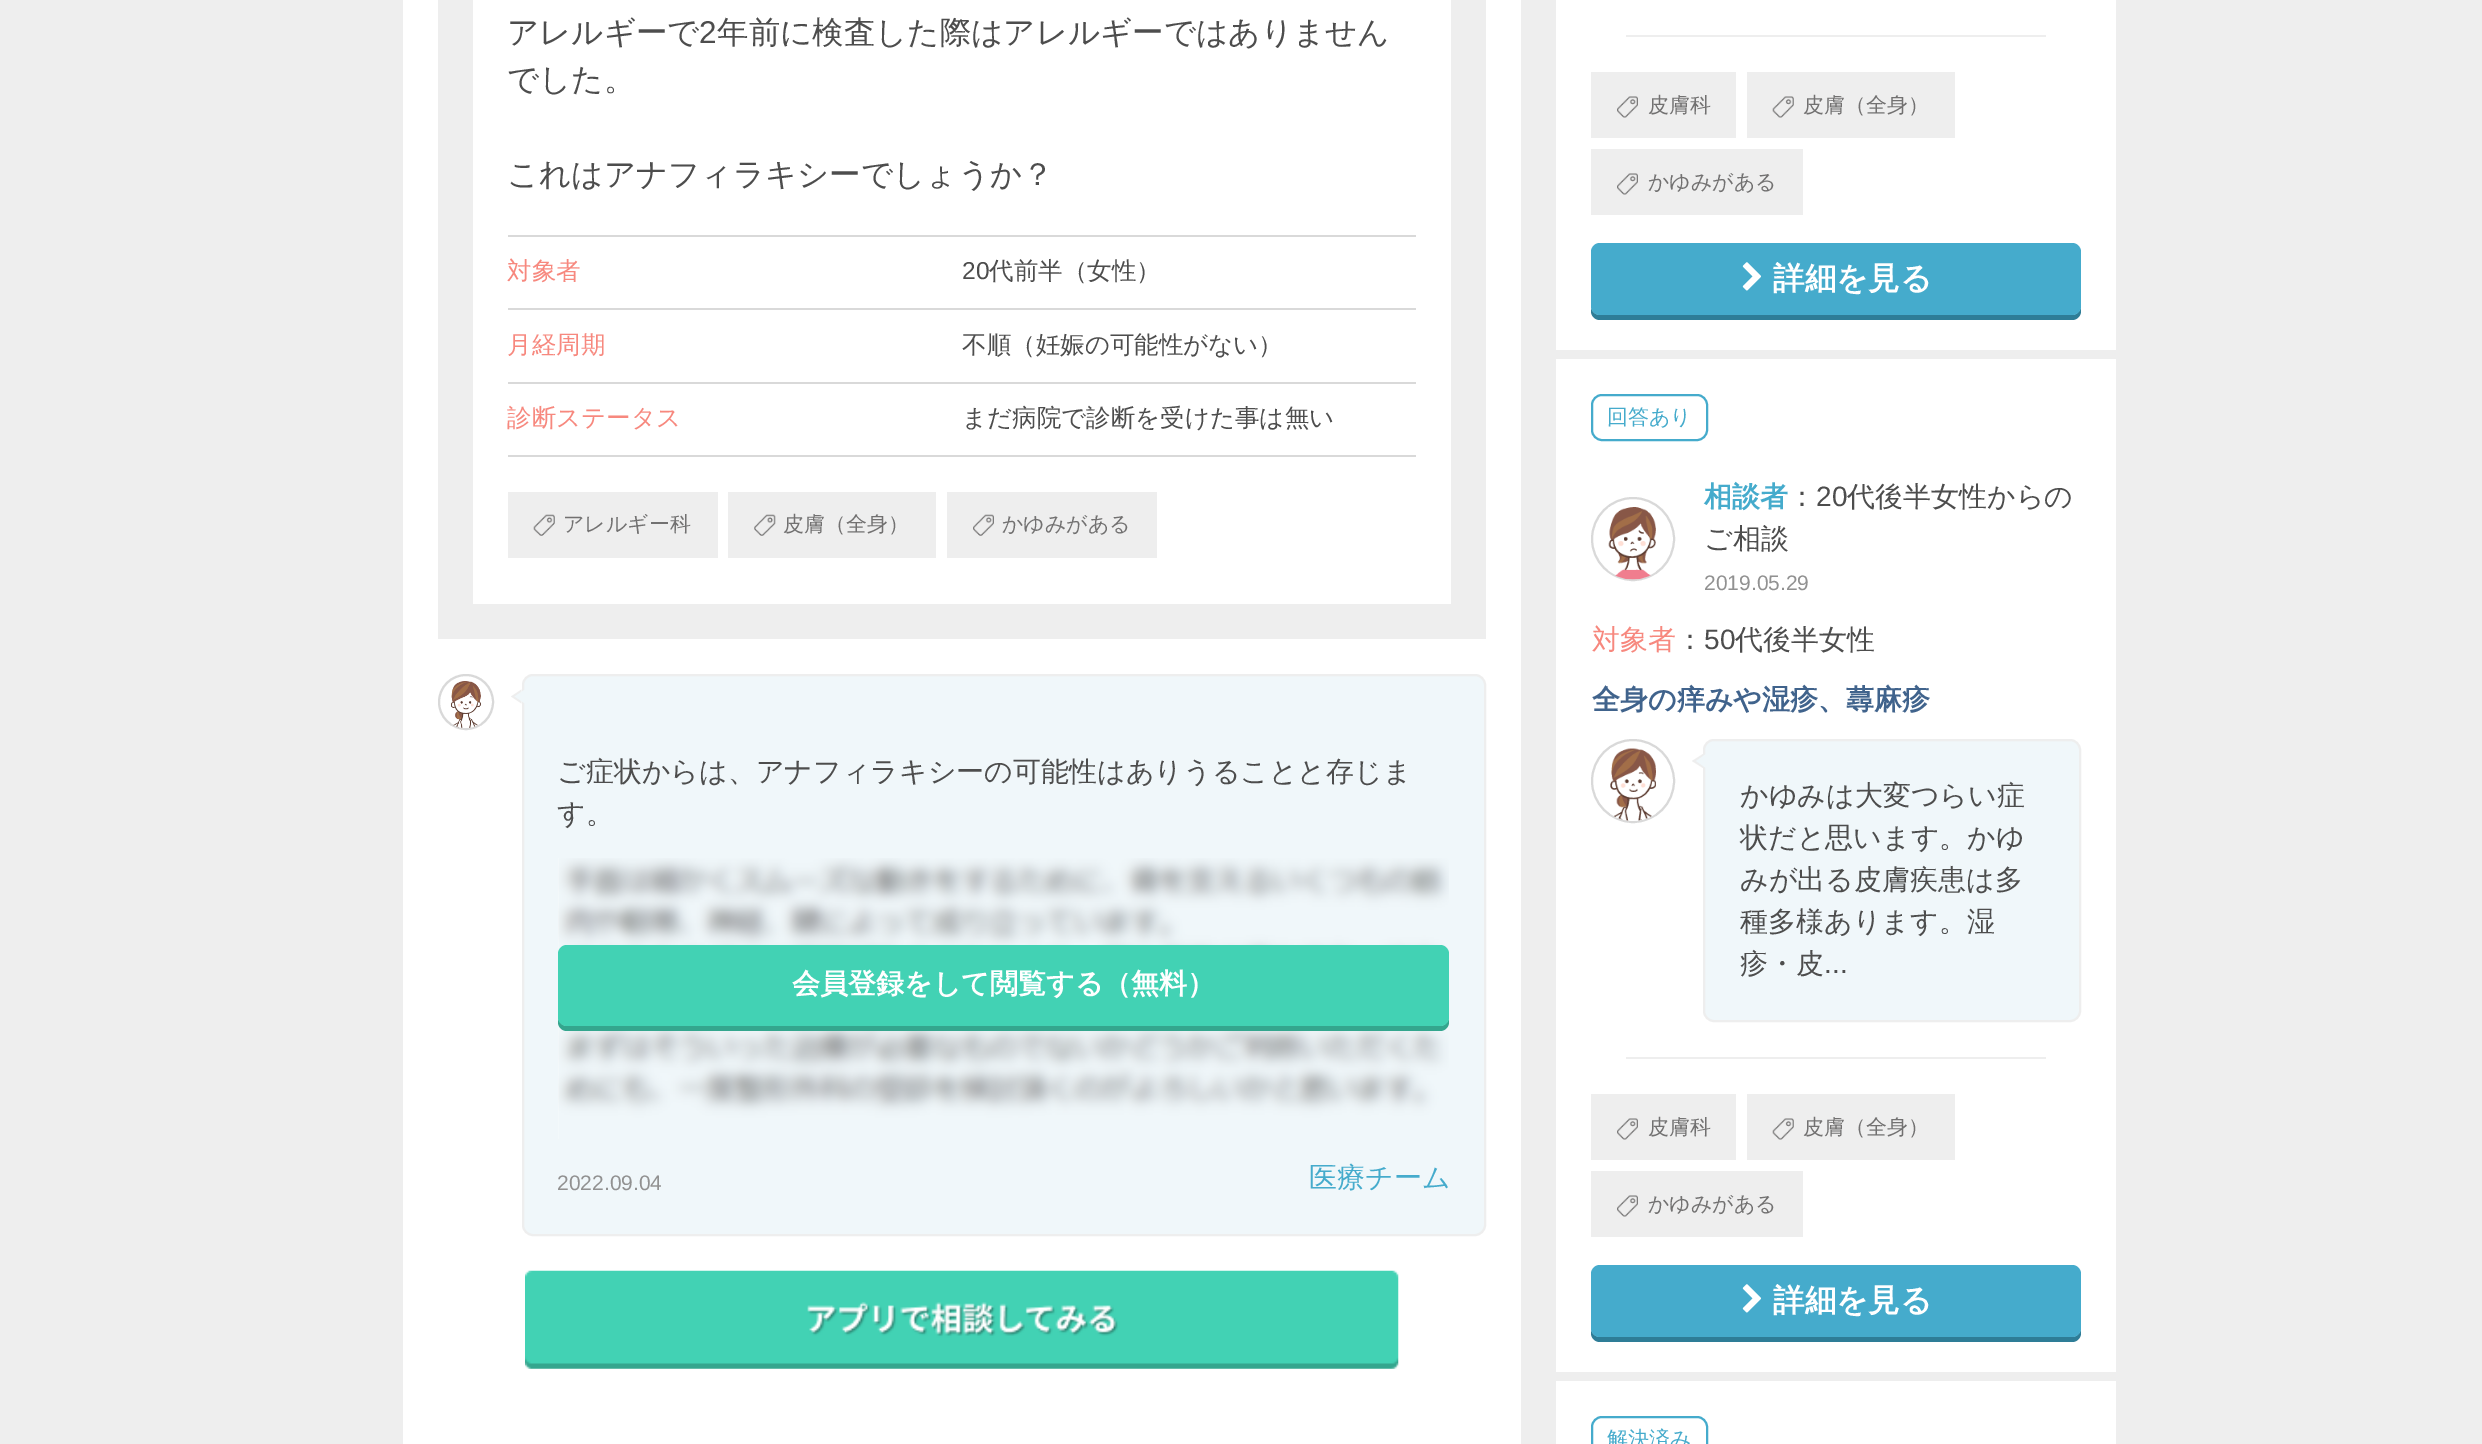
%!PS
<< /PageSize [2482 1444] >> setpagedevice
/mt/moveto load def
/li/lineto load def
/ct/curveto load def
/cp/closepath load def
/fl/fill load def
/st/stroke load def
/gs/gsave load def
/gr/grestore load def
/lw/setlinewidth load def
/co { dup -16 bitshift 255 div exch dup -8 bitshift 255 and 255 div exch 255 and 255 div setrgbcolor } def
/fn { [ exch dup neg 0 0 3 -1 roll 0 0 ] selectfont } def
/tx { co fn moveto show } def
/bx { co rectfill } def
/ci { newpath 0 360 arc closepath } def
/rr { 5 dict begin { /r /h /w /y /x } { exch def } forall
  x r add y moveto x w add y 2 copy h add r arct x w add y h add x 1 index r arct
  x y h add x y r arct x y 2 copy exch w add exch r arct closepath end } def
/im { 5 dict begin { /h /w /y /x /name } { exch def } forall
  gsave x y translate w h scale
  w h 8 [w 0 0 h 0 0] name (r) file false 3 colorimage grestore end } def
0 1444 translate 1 -1 scale
4 setmiterlimit
0 0 2482 1444 16#EEEEEE bx
403 0 1118 1444 16#FFFFFF bx
438 0 1048 639 16#EEEEEE bx
473 0 978 604 16#FFFFFF bx
508 235 908 2 16#D9D9D9 bx
508 308 908 2 16#D9D9D9 bx
508 382 908 2 16#D9D9D9 bx
508 455 908 2 16#D9D9D9 bx
508 492 210 66 16#EEEEEE bx
(media/1.raw) 533 514 22 22 im
728 492 208 66 16#EEEEEE bx
(media/2.raw) 754 514 22 22 im
947 492 210 66 16#EEEEEE bx
(media/3.raw) 973 514 21 22 im
16#D9D9D9 co
2 lw
466 702 27 ci st
(media/4.raw) 451 681 30 47 im
16#F0F7FA co
523 675 962 560 10 rr gs fl gr
16#EEEEEE co
st
521.5 689.5 mt 521.5 703.5 li 511 696.5 li cp fl
16#F0F7FA co
525 689.5 mt 525 703.5 li 514.5 696.5 li cp fl
(media/5.raw) 558 858 891 281 im
16#34A68E co
558 957 mt 558 1022 li 558 1027 562 1031 567 1031 ct 1440 1031 li 1445 1031 1449 1027 1449 1022 ct 1449 1017 li 1449 1022 1445 1026 1440 1026 ct 567 1026 li 562 1026 558 1022 558 1017 ct cp fl
16#42D2B4 co
558 945 891 81 9 rr fl
(media/6.raw) 525 1270 874 99 im
1556 0 560 350 16#FFFFFF bx
1626 35 420 2 16#EEEEEE bx
1591 72 145 66 16#EEEEEE bx
(media/7.raw) 1617 96 21 22 im
1747 72 208 66 16#EEEEEE bx
(media/8.raw) 1772 96 22 22 im
1591 149 212 66 16#EEEEEE bx
(media/7.raw) 1617 173 21 22 im
16#2E7D97 co
1591 308 mt 1591 311 li 1591 316 1595 320 1600 320 ct 2072 320 li 2077 320 2081 316 2081 311 ct 2081 256 li 2081 306 li 2081 311 2077 315 2072 315 ct 1600 315 li 1595 315 1592 312 1591 308 ct cp fl
16#45ABCC co
1591 243 490 72 9 rr fl
(media/9.raw) 1742 262 19 29 im
1556 359 560 1013 16#FFFFFF bx
16#45ABCC co
1592 395 115 45 10 rr st
16#D9D9D9 co
1633 539 41 ci st
(media/10.raw) 1608 507 48 73 im
1633 781 41 ci st
(media/11.raw) 1610 748 46 73 im
16#F0F7FA co
1704 740 376 281 10 rr gs fl gr
16#EEEEEE co
st
1703 754 mt 1703 768 li 1692 761 li cp fl
16#F0F7FA co
1706 754 mt 1706 768 li 1696 761 li cp fl
1626 1057 420 2 16#EEEEEE bx
1591 1094 145 66 16#EEEEEE bx
(media/7.raw) 1617 1118 21 22 im
1747 1094 208 66 16#EEEEEE bx
(media/8.raw) 1772 1118 22 22 im
1591 1171 212 66 16#EEEEEE bx
(media/7.raw) 1617 1195 21 22 im
16#2E7D97 co
1591 1330 mt 1591 1333 li 1591 1338 1595 1342 1600 1342 ct 2072 1342 li 2077 1342 2081 1338 2081 1333 ct 2081 1278 li 2081 1328 li 2081 1333 2077 1337 2072 1337 ct 1600 1337 li 1595 1337 1592 1334 1591 1330 ct cp fl
16#45ABCC co
1591 1265 490 72 9 rr fl
(media/9.raw) 1742 1284 19 29 im
1556 1381 560 63 16#FFFFFF bx
16#45ABCC co
1592 1417 115 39 10 rr st
(アレルギーで) 507 43 /WenQuanYiZenHei-Medium 31.5 16#4D4D4D tx
(2) 699 43 /LiberationSans-Regular 31.5 16#4D4D4D tx
(年前に検査した際はアレルギーではありません) 717 43 /WenQuanYiZenHei-Medium 31.5 16#4D4D4D tx
(でした。) 507 90 /WenQuanYiZenHei-Medium 31.5 16#4D4D4D tx
(これはアナフィラキシーでしょうか？) 507 185 /WenQuanYiZenHei-Medium 31.5 16#4D4D4D tx
(対象者) 507 279 /WenQuanYiZenHei-Medium 24.5 16#F7887E tx
(20) 962 279 /LiberationSans-Regular 24.5 16#4D4D4D tx
(代前半（女性）) 989 279 /WenQuanYiZenHei-Medium 24.5 16#4D4D4D tx
(月経周期) 507 353 /WenQuanYiZenHei-Medium 24.5 16#F7887E tx
(不順（妊娠の可能性がない）) 962 353 /WenQuanYiZenHei-Medium 24.5 16#4D4D4D tx
(診断ステータス) 507 426 /WenQuanYiZenHei-Medium 24.5 16#F7887E tx
(まだ病院で診断を受けた事は無い) 962 426 /WenQuanYiZenHei-Medium 24.5 16#4D4D4D tx
(アレルギー科) 563 531 /WenQuanYiZenHei-Medium 21 16#727171 tx
(皮膚（全身）) 783 531 /WenQuanYiZenHei-Medium 21 16#727171 tx
(かゆみがある) 1002 531 /WenQuanYiZenHei-Medium 21 16#727171 tx
(ご症状からは、アナフィラキシーの可能性はありうることと存じま) 557 781 /WenQuanYiZenHei-Medium 28 16#4D4D4D tx
(す。) 557 823 /WenQuanYiZenHei-Medium 28 16#4D4D4D tx
(会員登録をして閲覧する（無料）) 792 993 /WenQuanYiZenHei-Bold 28 16#FFFFFF tx
(2022.09.04) 557 1190 /LiberationSans-Regular 21 16#919191 tx
(医療チーム) 1309 1187 /WenQuanYiZenHei-Medium 28 16#45ABCC tx
(皮膚科) 1648 112 /WenQuanYiZenHei-Medium 21 16#727171 tx
(皮膚（全身）) 1803 112 /WenQuanYiZenHei-Medium 21 16#727171 tx
(かゆみがある) 1648 189 /WenQuanYiZenHei-Medium 21 16#727171 tx
(詳細を見る) 1773 289 /WenQuanYiZenHei-Bold 31.5 16#FFFFFF tx
(回答あり) 1607 424 /WenQuanYiZenHei-Medium 21 16#45ABCC tx
(相談者) 1704 506 /WenQuanYiZenHei-Bold 28 16#45ABCC tx
(：) 1788 506 /WenQuanYiZenHei-Medium 28 16#4D4D4D tx
(20) 1816 506 /LiberationSans-Regular 28 16#4D4D4D tx
(代後半女性からの) 1847 506 /WenQuanYiZenHei-Medium 28 16#4D4D4D tx
(ご相談) 1704 548 /WenQuanYiZenHei-Medium 28 16#4D4D4D tx
(2019.05.29) 1704 590 /LiberationSans-Regular 21 16#919191 tx
(対象者) 1592 649 /WenQuanYiZenHei-Medium 28 16#F7887E tx
(：) 1676 649 /WenQuanYiZenHei-Medium 28 16#4D4D4D tx
(50) 1704 649 /LiberationSans-Regular 28 16#4D4D4D tx
(代後半女性) 1735 649 /WenQuanYiZenHei-Medium 28 16#4D4D4D tx
(全身の痒みや湿疹、蕁麻疹) 1592 709 /WenQuanYiZenHei-Bold 28 16#40638C tx
(かゆみは大変つらい症) 1740 805 /WenQuanYiZenHei-Medium 28 16#4D4D4D tx
(状だと思います。かゆ) 1740 847 /WenQuanYiZenHei-Medium 28 16#4D4D4D tx
(みが出る皮膚疾患は多) 1740 889 /WenQuanYiZenHei-Medium 28 16#4D4D4D tx
(種多様あります。湿) 1740 931 /WenQuanYiZenHei-Medium 28 16#4D4D4D tx
(疹・皮) 1740 973 /WenQuanYiZenHei-Medium 28 16#4D4D4D tx
(...) 1824 973 /LiberationSans-Regular 28 16#4D4D4D tx
(皮膚科) 1648 1134 /WenQuanYiZenHei-Medium 21 16#727171 tx
(皮膚（全身）) 1803 1134 /WenQuanYiZenHei-Medium 21 16#727171 tx
(かゆみがある) 1648 1211 /WenQuanYiZenHei-Medium 21 16#727171 tx
(詳細を見る) 1773 1311 /WenQuanYiZenHei-Bold 31.5 16#FFFFFF tx
(解決済み) 1607 1446 /WenQuanYiZenHei-Medium 21 16#45ABCC tx
showpage
